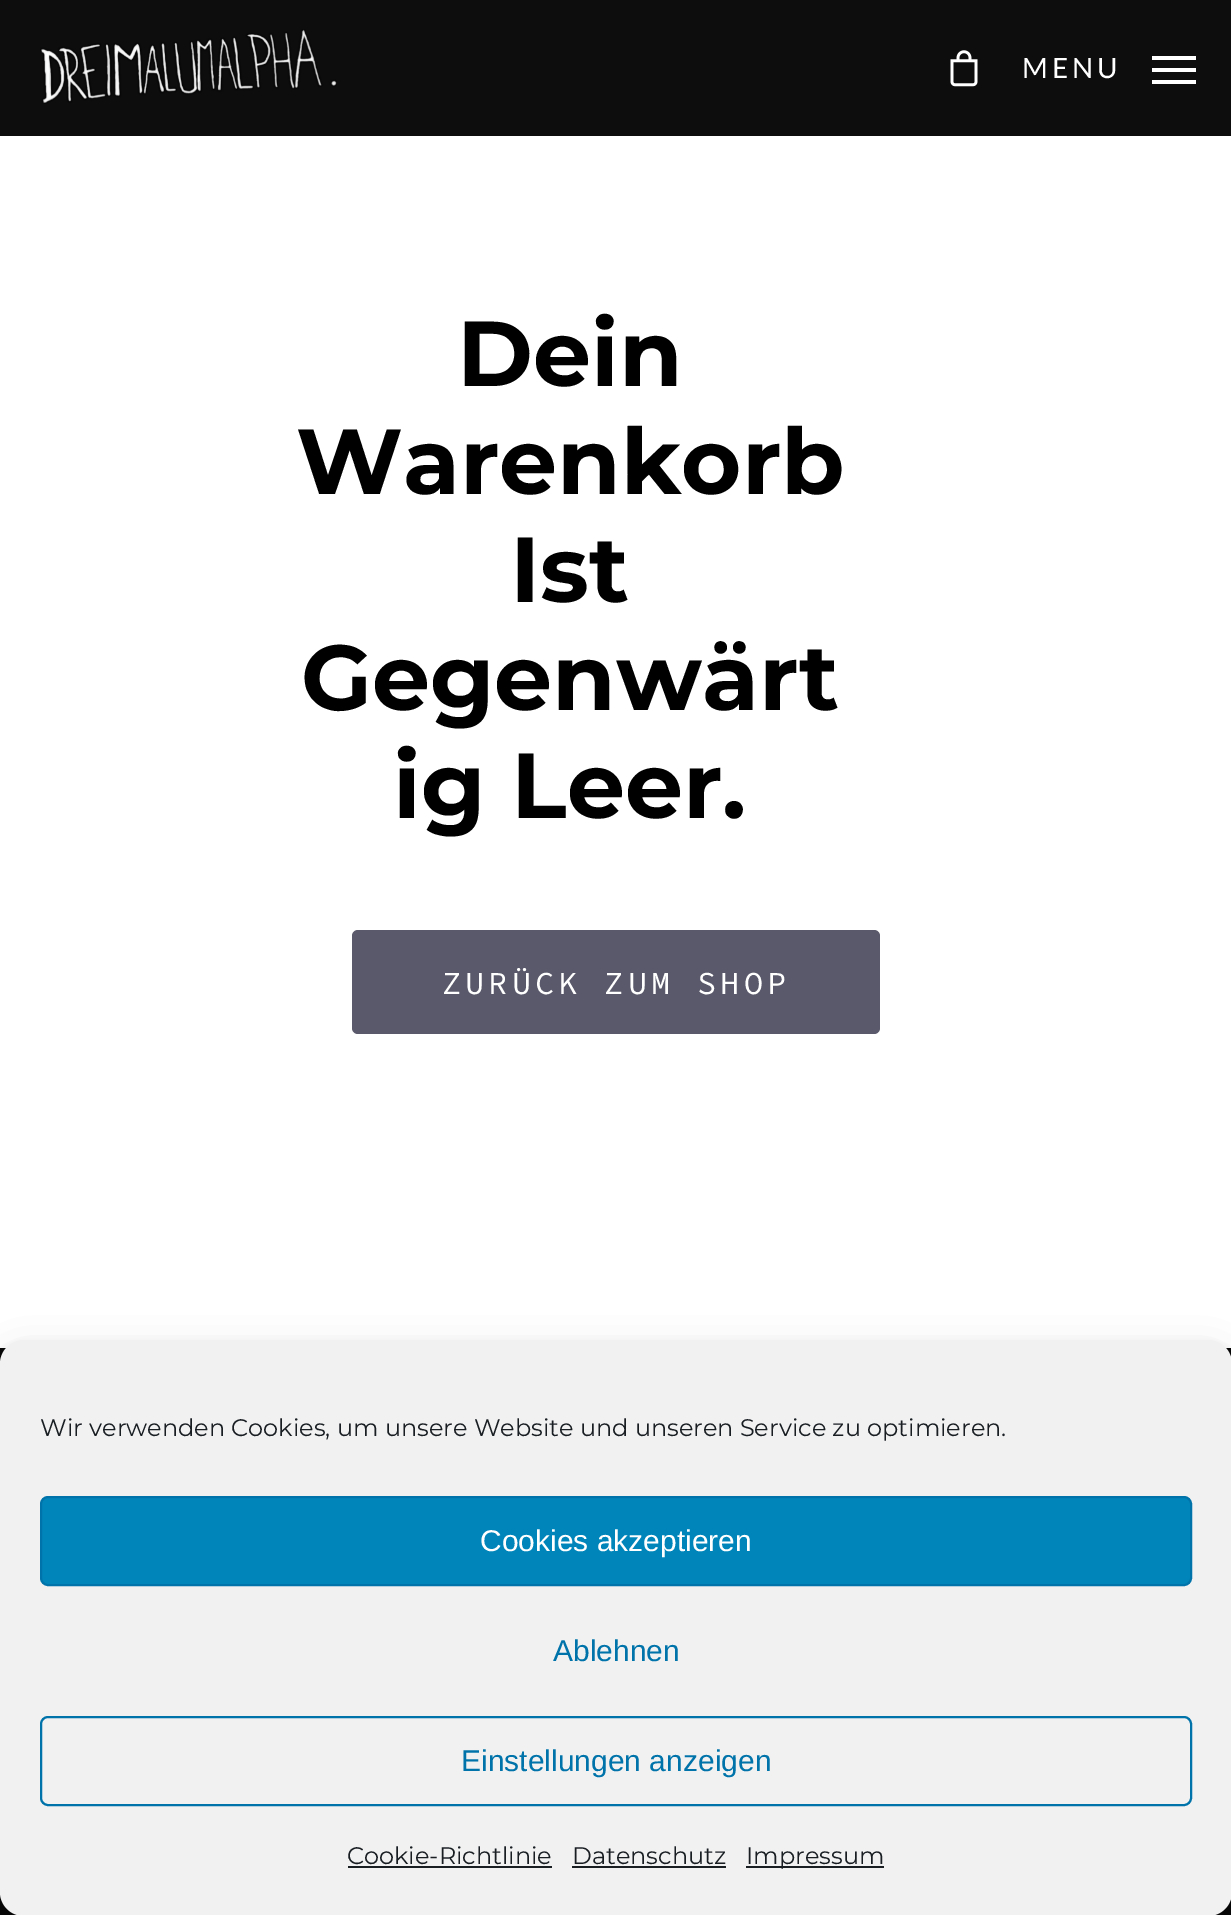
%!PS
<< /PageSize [1231 1915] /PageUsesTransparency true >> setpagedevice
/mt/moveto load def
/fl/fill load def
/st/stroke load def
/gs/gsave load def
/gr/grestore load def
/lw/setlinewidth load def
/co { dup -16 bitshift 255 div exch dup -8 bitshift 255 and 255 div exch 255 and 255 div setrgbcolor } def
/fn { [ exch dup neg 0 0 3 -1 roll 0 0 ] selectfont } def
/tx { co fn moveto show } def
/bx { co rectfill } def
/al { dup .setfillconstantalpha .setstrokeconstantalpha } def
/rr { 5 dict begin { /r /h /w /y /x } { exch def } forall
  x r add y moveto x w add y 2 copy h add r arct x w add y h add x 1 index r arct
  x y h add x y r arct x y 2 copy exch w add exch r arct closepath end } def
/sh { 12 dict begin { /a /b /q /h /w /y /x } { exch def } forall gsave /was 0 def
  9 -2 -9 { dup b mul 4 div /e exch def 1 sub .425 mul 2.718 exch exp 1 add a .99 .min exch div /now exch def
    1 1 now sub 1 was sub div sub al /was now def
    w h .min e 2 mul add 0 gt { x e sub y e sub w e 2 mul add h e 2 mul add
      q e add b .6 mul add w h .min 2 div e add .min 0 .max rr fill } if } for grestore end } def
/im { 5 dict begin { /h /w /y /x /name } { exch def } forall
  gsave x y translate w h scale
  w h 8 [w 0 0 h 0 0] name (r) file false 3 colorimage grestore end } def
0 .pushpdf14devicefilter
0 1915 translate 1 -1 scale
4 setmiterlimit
0 0 1231 1915 16#FFFFFF bx
0 0 1231 136 16#0D0D0D bx
(media/1.raw) 40 29 297 75 im
(media/2.raw) 950 50 28 37 im
1152 56 44 4 16#FFFFFF bx
1152 80 44 4 16#FFFFFF bx
1152 68 44 4 16#FFFFFF bx
16#59596B co
352 930 528 104 6 rr fl
0 1348 1231 567 16#060606 bx
16#000000 co
0 1352 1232 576 24 6 .23 sh
0 1360 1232 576 24 20 .19 sh
16#F1F1F1 co
0 1340 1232 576 24 rr fl
16#0085BA co
41 1497 1150 88 7 rr gs fl gr
16#0073AA co
2 lw
st
41 1717 1150 88 7 rr st
348 1866 204 2 16#191E23 bx
572 1866 154 2 16#191E23 bx
746 1866 138 2 16#191E23 bx
/Lato-Regular 28 fn
16#FFFFFF co
1022 78 mt 4 0 (MENU) ashow
(Dein) 457 386 /Montserrat-Bold 92 16#000000 tx
(Warenkorb) 296 494 /Montserrat-Bold 92 16#000000 tx
(Ist) 510 602 /Montserrat-Bold 92 16#000000 tx
(Gegenwärt) 301 710 /Montserrat-Bold 92 16#000000 tx
(ig Leer.) 393 818 /Montserrat-Bold 92 16#000000 tx
/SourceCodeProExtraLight-ExtraLight 32 fn
16#FFFFFF co
442 994 mt 4 0 (ZURÜCK ZUM SHOP) ashow
(Wir verwenden Cookies, um unsere Website und unseren Service zu optimieren.) 40 1436 /Montserrat-Regular 24 16#191E23 tx
(Cookies akzeptieren) 480 1551 /LiberationSans-Regular 30 16#FFFFFF tx
(Ablehnen) 553 1661 /LiberationSans-Regular 30 16#0073AA tx
(Einstellungen anzeigen) 461 1771 /LiberationSans-Regular 30 16#0073AA tx
(Cookie-Richtlinie) 347 1864 /Montserrat-Regular 24 16#191E23 tx
(Datenschutz) 572 1864 /Montserrat-Regular 24 16#191E23 tx
(Impressum) 746 1864 /Montserrat-Regular 24 16#191E23 tx
.poppdf14devicefilter showpage
